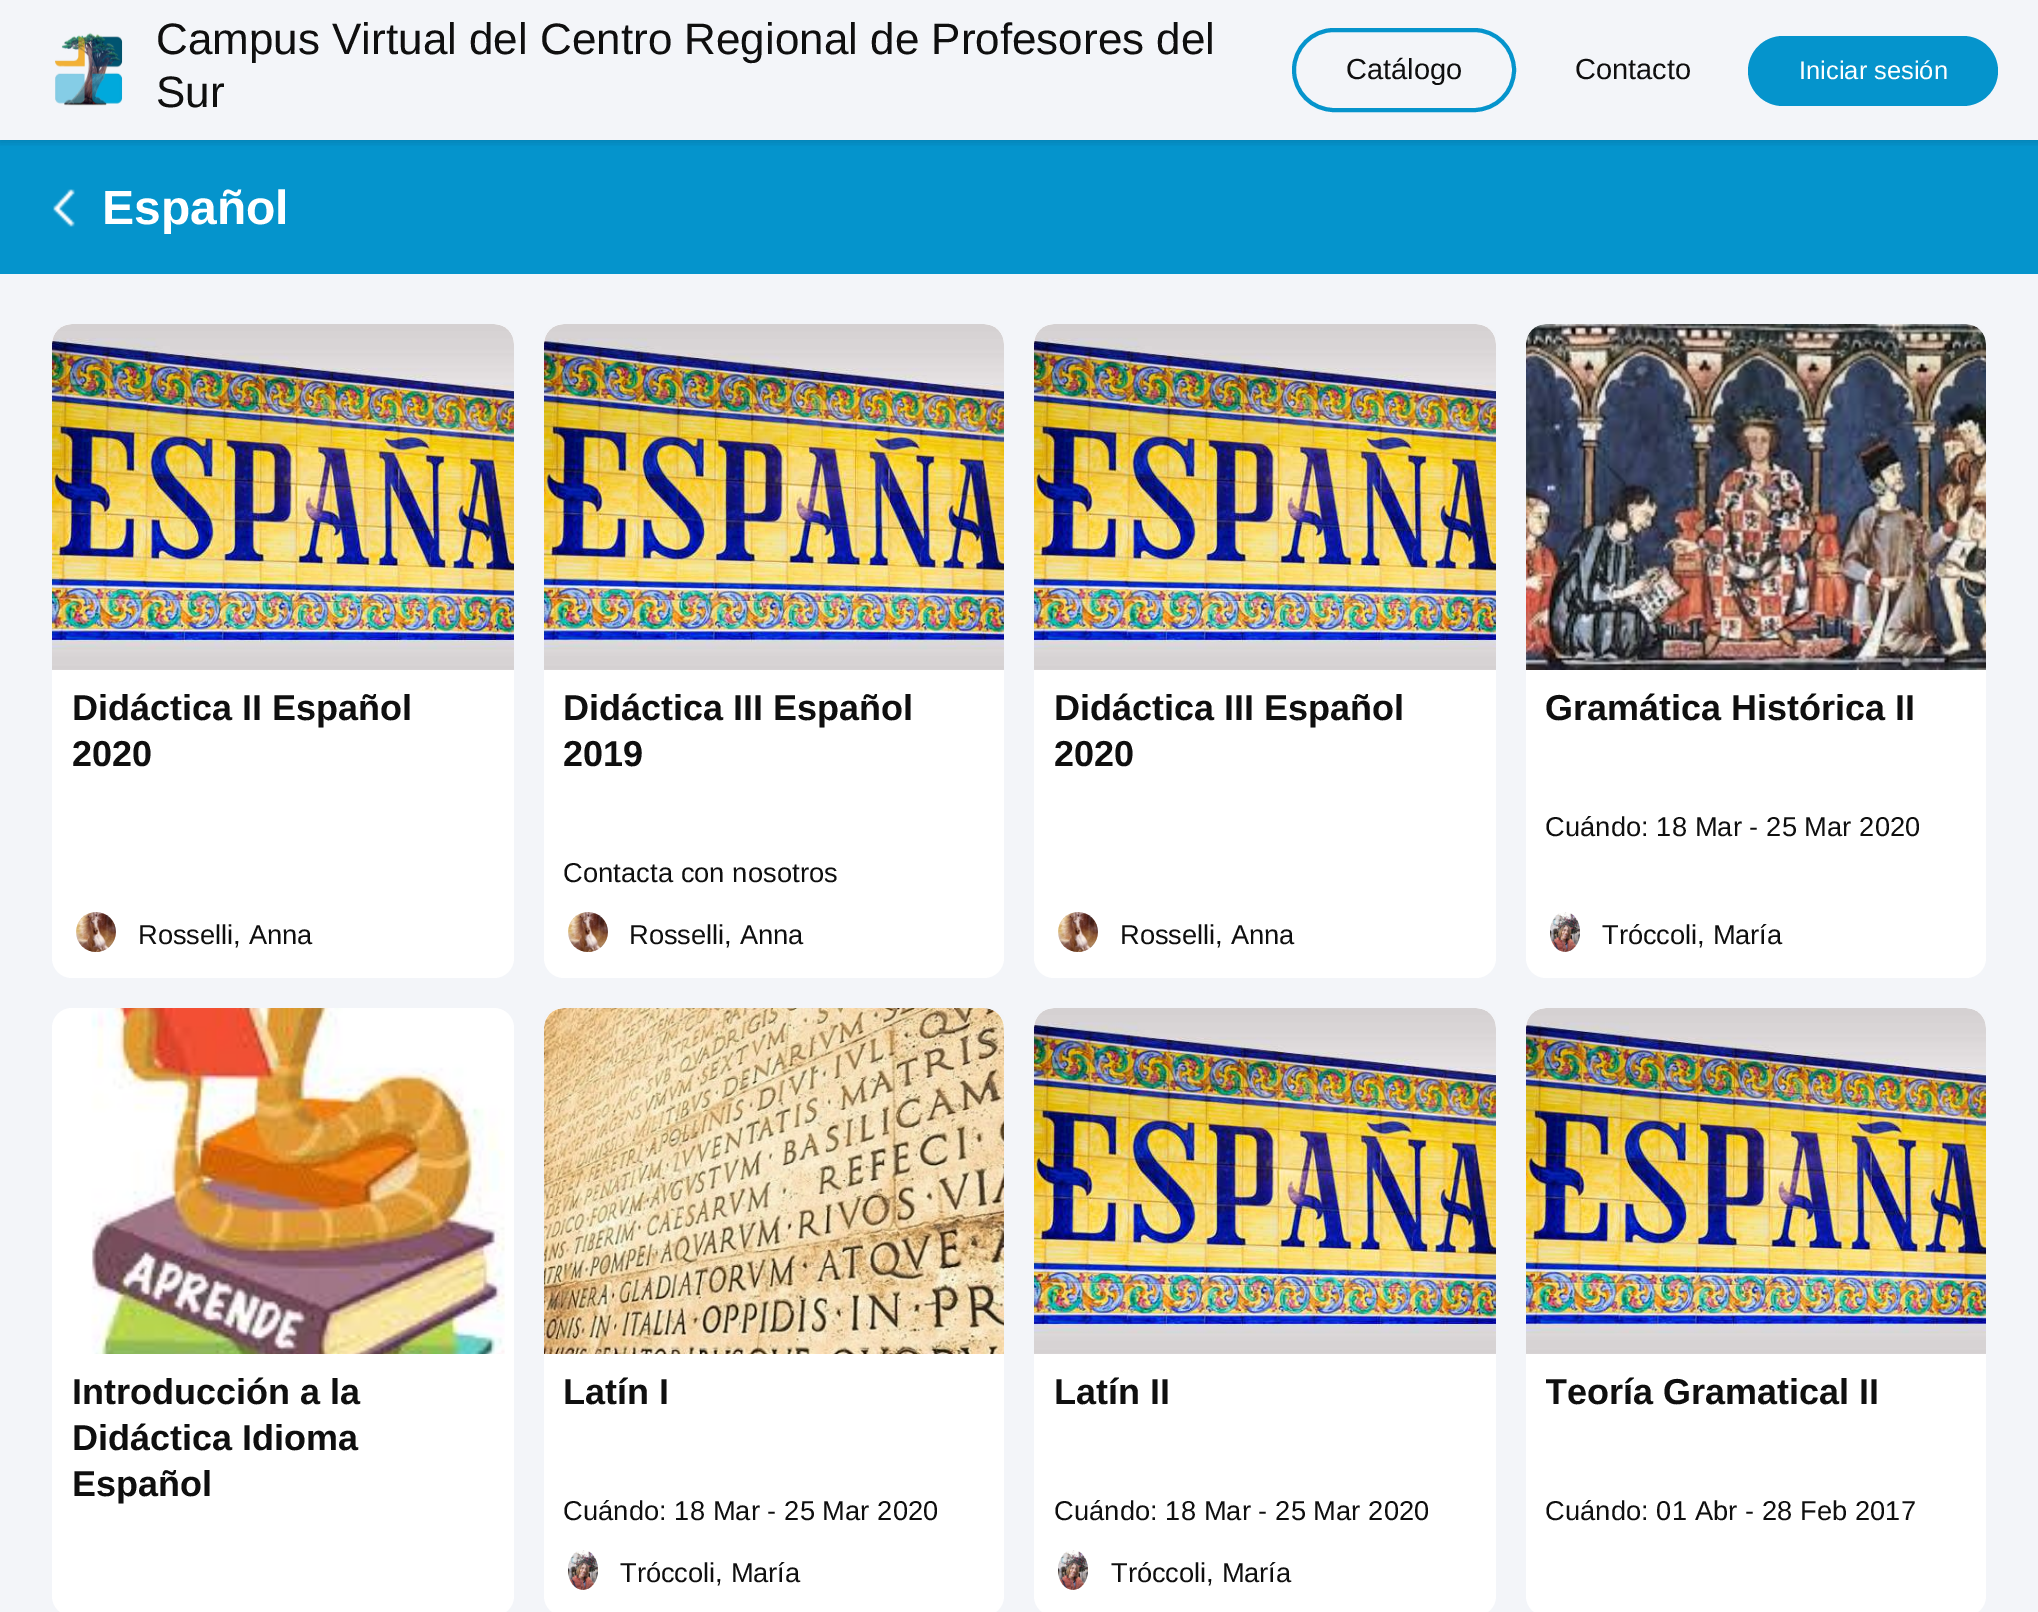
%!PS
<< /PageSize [2038 1612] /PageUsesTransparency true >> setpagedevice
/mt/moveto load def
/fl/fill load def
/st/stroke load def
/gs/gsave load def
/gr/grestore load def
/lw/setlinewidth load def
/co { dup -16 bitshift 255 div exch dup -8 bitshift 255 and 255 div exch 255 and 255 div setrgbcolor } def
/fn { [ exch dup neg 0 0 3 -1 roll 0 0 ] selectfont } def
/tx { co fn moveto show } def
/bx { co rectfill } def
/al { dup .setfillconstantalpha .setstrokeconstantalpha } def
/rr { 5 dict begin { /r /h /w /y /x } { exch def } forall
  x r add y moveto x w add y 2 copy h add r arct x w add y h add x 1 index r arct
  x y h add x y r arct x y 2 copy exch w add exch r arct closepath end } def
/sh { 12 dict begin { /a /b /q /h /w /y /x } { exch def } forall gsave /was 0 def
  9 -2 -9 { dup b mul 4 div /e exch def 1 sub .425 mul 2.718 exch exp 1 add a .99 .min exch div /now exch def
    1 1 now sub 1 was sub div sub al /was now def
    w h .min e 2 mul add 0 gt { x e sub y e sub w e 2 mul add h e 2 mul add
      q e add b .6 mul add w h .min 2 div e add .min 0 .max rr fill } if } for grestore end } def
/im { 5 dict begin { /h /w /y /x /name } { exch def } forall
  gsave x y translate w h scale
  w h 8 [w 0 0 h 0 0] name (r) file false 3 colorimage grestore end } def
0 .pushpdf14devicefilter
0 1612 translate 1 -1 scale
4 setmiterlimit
0 0 2038 1612 16#F3F5F9 bx
0 140 2038 134 16#0594CC bx
gs
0 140 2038 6 rectclip
16#000000 co
0 2 2038 140 0 4 .12 sh
gr
(media/1.raw) 55 32 68 74 im
4 lw
1294 30 220 80 40 rr st
1748 36 250 70 35 rr fl
(media/2.raw) 53 189 22 38 im
16#FFFFFF co
52 324 462 654 20 rr fl
(media/3.raw) 52 324 462 346 im
(media/4.raw) 76 912 40 40 im
544 324 460 654 20 rr fl
(media/5.raw) 544 324 460 346 im
(media/4.raw) 568 912 40 40 im
1034 324 462 654 20 rr fl
(media/6.raw) 1034 324 462 346 im
(media/4.raw) 1058 912 40 40 im
1526 324 460 654 20 rr fl
(media/7.raw) 1526 324 460 346 im
(media/8.raw) 1550 912 30 40 im
52 1008 462 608 20 rr fl
(media/9.raw) 91 1008 414 346 im
544 1008 460 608 20 rr fl
(media/10.raw) 544 1008 460 346 im
(media/11.raw) 568 1550 30 40 im
1034 1008 462 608 20 rr fl
(media/12.raw) 1034 1008 462 346 im
(media/13.raw) 1058 1550 30 40 im
1526 1008 460 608 20 rr fl
(media/14.raw) 1526 1008 460 346 im
(Campus Virtual del Centro Regional de Profesores del) 156 54 /LiberationSans-Regular 44 16#0F0F0F tx
(Sur) 156 107 /LiberationSans-Regular 44 16#0F0F0F tx
(Catálogo) 1346 79 /LiberationSans-Regular 29 16#0F0F0F tx
(Contacto) 1575 79 /LiberationSans-Regular 29 16#0F0F0F tx
(Iniciar sesión) 1799 79 /LiberationSans-Regular 25.5 16#FFFFFF tx
(Español) 102 224 /LiberationSans-Bold 48 16#FFFFFF tx
(Didáctica II Español) 72 720 /LiberationSans-Bold 36 16#0F0F0F tx
(2020) 72 766 /LiberationSans-Bold 36 16#0F0F0F tx
(Rosselli, Anna) 138 944 /LiberationSans-Regular 27.25 16#0F0F0F tx
(Didáctica III Español) 563 720 /LiberationSans-Bold 36 16#0F0F0F tx
(2019) 563 766 /LiberationSans-Bold 36 16#0F0F0F tx
/LiberationSans-Regular 27.25 fn
563 882 mt .1 0 (Contacta con nosotros) ashow
(Rosselli, Anna) 629 944 /LiberationSans-Regular 27.25 16#0F0F0F tx
(Didáctica III Español) 1054 720 /LiberationSans-Bold 36 16#0F0F0F tx
(2020) 1054 766 /LiberationSans-Bold 36 16#0F0F0F tx
(Rosselli, Anna) 1120 944 /LiberationSans-Regular 27.25 16#0F0F0F tx
(Gramática Histórica II) 1545 720 /LiberationSans-Bold 36 16#0F0F0F tx
/LiberationSans-Regular 27.25 fn
1545 836 mt .1 0 (Cuándo: 18 Mar - 25 Mar 2020) ashow
(Tróccoli, María) 1602 944 /LiberationSans-Regular 27.25 16#0F0F0F tx
(Introducción a la) 72 1404 /LiberationSans-Bold 36 16#0F0F0F tx
(Didáctica Idioma) 72 1450 /LiberationSans-Bold 36 16#0F0F0F tx
(Español) 72 1496 /LiberationSans-Bold 36 16#0F0F0F tx
(Latín I) 563 1404 /LiberationSans-Bold 36 16#0F0F0F tx
/LiberationSans-Regular 27.25 fn
563 1520 mt .1 0 (Cuándo: 18 Mar - 25 Mar 2020) ashow
(Tróccoli, María) 620 1582 /LiberationSans-Regular 27.25 16#0F0F0F tx
(Latín II) 1054 1404 /LiberationSans-Bold 36 16#0F0F0F tx
/LiberationSans-Regular 27.25 fn
1054 1520 mt .1 0 (Cuándo: 18 Mar - 25 Mar 2020) ashow
(Tróccoli, María) 1111 1582 /LiberationSans-Regular 27.25 16#0F0F0F tx
gs
1546 1354 420 62 rectclip
(Teoría Gramatical II) 1545 1404 /LiberationSans-Bold 36 16#0F0F0F tx
gr
1545 1520 mt .1 0 (Cuándo: 01 Abr - 28 Feb 2017) ashow
.poppdf14devicefilter showpage
